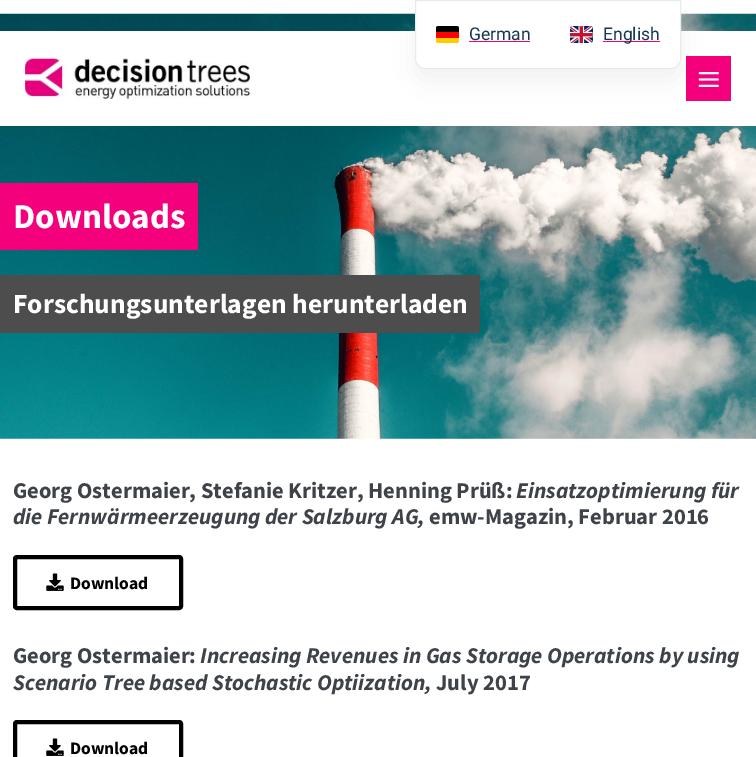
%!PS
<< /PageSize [756 757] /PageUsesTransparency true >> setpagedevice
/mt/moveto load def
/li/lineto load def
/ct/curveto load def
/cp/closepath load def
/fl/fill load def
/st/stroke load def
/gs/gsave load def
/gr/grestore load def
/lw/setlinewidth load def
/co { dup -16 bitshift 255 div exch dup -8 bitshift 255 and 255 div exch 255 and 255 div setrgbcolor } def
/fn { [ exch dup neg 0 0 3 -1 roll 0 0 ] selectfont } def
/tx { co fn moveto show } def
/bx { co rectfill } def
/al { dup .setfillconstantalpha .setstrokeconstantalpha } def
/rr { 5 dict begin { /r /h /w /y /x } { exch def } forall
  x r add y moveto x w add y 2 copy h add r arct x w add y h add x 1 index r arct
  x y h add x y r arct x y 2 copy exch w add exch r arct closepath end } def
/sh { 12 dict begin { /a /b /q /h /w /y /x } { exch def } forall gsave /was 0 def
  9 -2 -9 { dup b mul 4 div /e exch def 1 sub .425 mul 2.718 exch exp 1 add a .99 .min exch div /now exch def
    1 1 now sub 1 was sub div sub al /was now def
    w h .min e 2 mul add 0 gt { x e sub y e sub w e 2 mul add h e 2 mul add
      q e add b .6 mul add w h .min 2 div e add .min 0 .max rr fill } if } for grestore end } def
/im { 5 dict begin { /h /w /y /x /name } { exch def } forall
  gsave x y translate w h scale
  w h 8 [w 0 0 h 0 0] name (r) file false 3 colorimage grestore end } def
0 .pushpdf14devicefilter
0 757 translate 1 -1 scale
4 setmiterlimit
0 0 756 757 16#FFFFFF bx
(media/4.raw) 0 13 756 426 im
0 31 756 95 16#FFFFFF bx
686 56 45 45 16#F5007C bx
(media/3.raw) 698 72 21 15 im
16#000000 co
415 13 266 68 10 12.5 .05 sh
16#FFFFFF co
415.5 .5 mt 680.5 .5 li 680.5 59 li 680.5 64 676 68.5 671 68.5 ct 425 68.5 li 420 68.5 415.5 64 415.5 59 ct cp gs fl gr
16#E7EBEE co
st
16#FFCC00 co
436 38 mt 459 38 li 459 40.5 li 459 42 458 43 456.5 43 ct 438.5 43 li 437 43 436 42 436 40.5 ct cp fl
16#000001 co
438.5 26 mt 456.5 26 li 458 26 459 27 459 28.5 ct 459 32 li 436 32 li 436 28.5 li 436 27 437 26 438.5 26 ct cp fl
436 32 23 6 16#FF0000 bx
469 41 61 1 16#F5007C bx
(media/1.raw) 570 26 23 17 im
603 41 57 1 16#F5007C bx
(media/2.raw) 25 58 225 41 im
0 183 198 67 16#F5007C bx
0 275 480 58 16#4D4D4D bx
16#000000 co
4 lw
15 557 166 51 2 rr st
(media/5.raw) 46 573 18 18 im
15 722 166 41 2 rr st
(media/5.raw) 46 738 18 18 im
(German) 469 40 /Roboto-Regular 17.5 16#143852 tx
(English) 603 40 /Roboto-Regular 17.5 16#143852 tx
(Downloads) 13 228 /SourceSansPro-Bold 35 16#FFFFFF tx
(Forschungsunterlagen herunterladen) 13 313 /SourceSansPro-Bold 27.5 16#FFFFFF tx
(Georg Ostermaier, Stefanie Kritzer, Henning Prüß:) 13 498 /SourceSansPro-Bold 22.5 16#3E4349 tx
(Einsatzoptimierung für) 516 498 /SourceSansPro-BoldItalic 22.5 16#3E4349 tx
(die Fernwärmeerzeugung der Salzburg AG,) 13 524 /SourceSansPro-BoldItalic 22.5 16#3E4349 tx
(emw-Magazin, Februar 2016) 429 524 /SourceSansPro-Bold 22.5 16#3E4349 tx
(Download) 70 589 /SourceSansPro-Bold 17.5 16#000000 tx
(Georg Ostermaier:) 13 663 /SourceSansPro-Bold 22.5 16#3E4349 tx
(Increasing Revenues in Gas Storage Operations by using) 200 663 /SourceSansPro-BoldItalic 22.5 16#3E4349 tx
(Scenario Tree based Stochastic Optiization,) 13 690 /SourceSansPro-BoldItalic 22.5 16#3E4349 tx
(July 2017) 436 690 /SourceSansPro-Bold 22.5 16#3E4349 tx
(Download) 70 754 /SourceSansPro-Bold 17.5 16#000000 tx
.poppdf14devicefilter showpage
